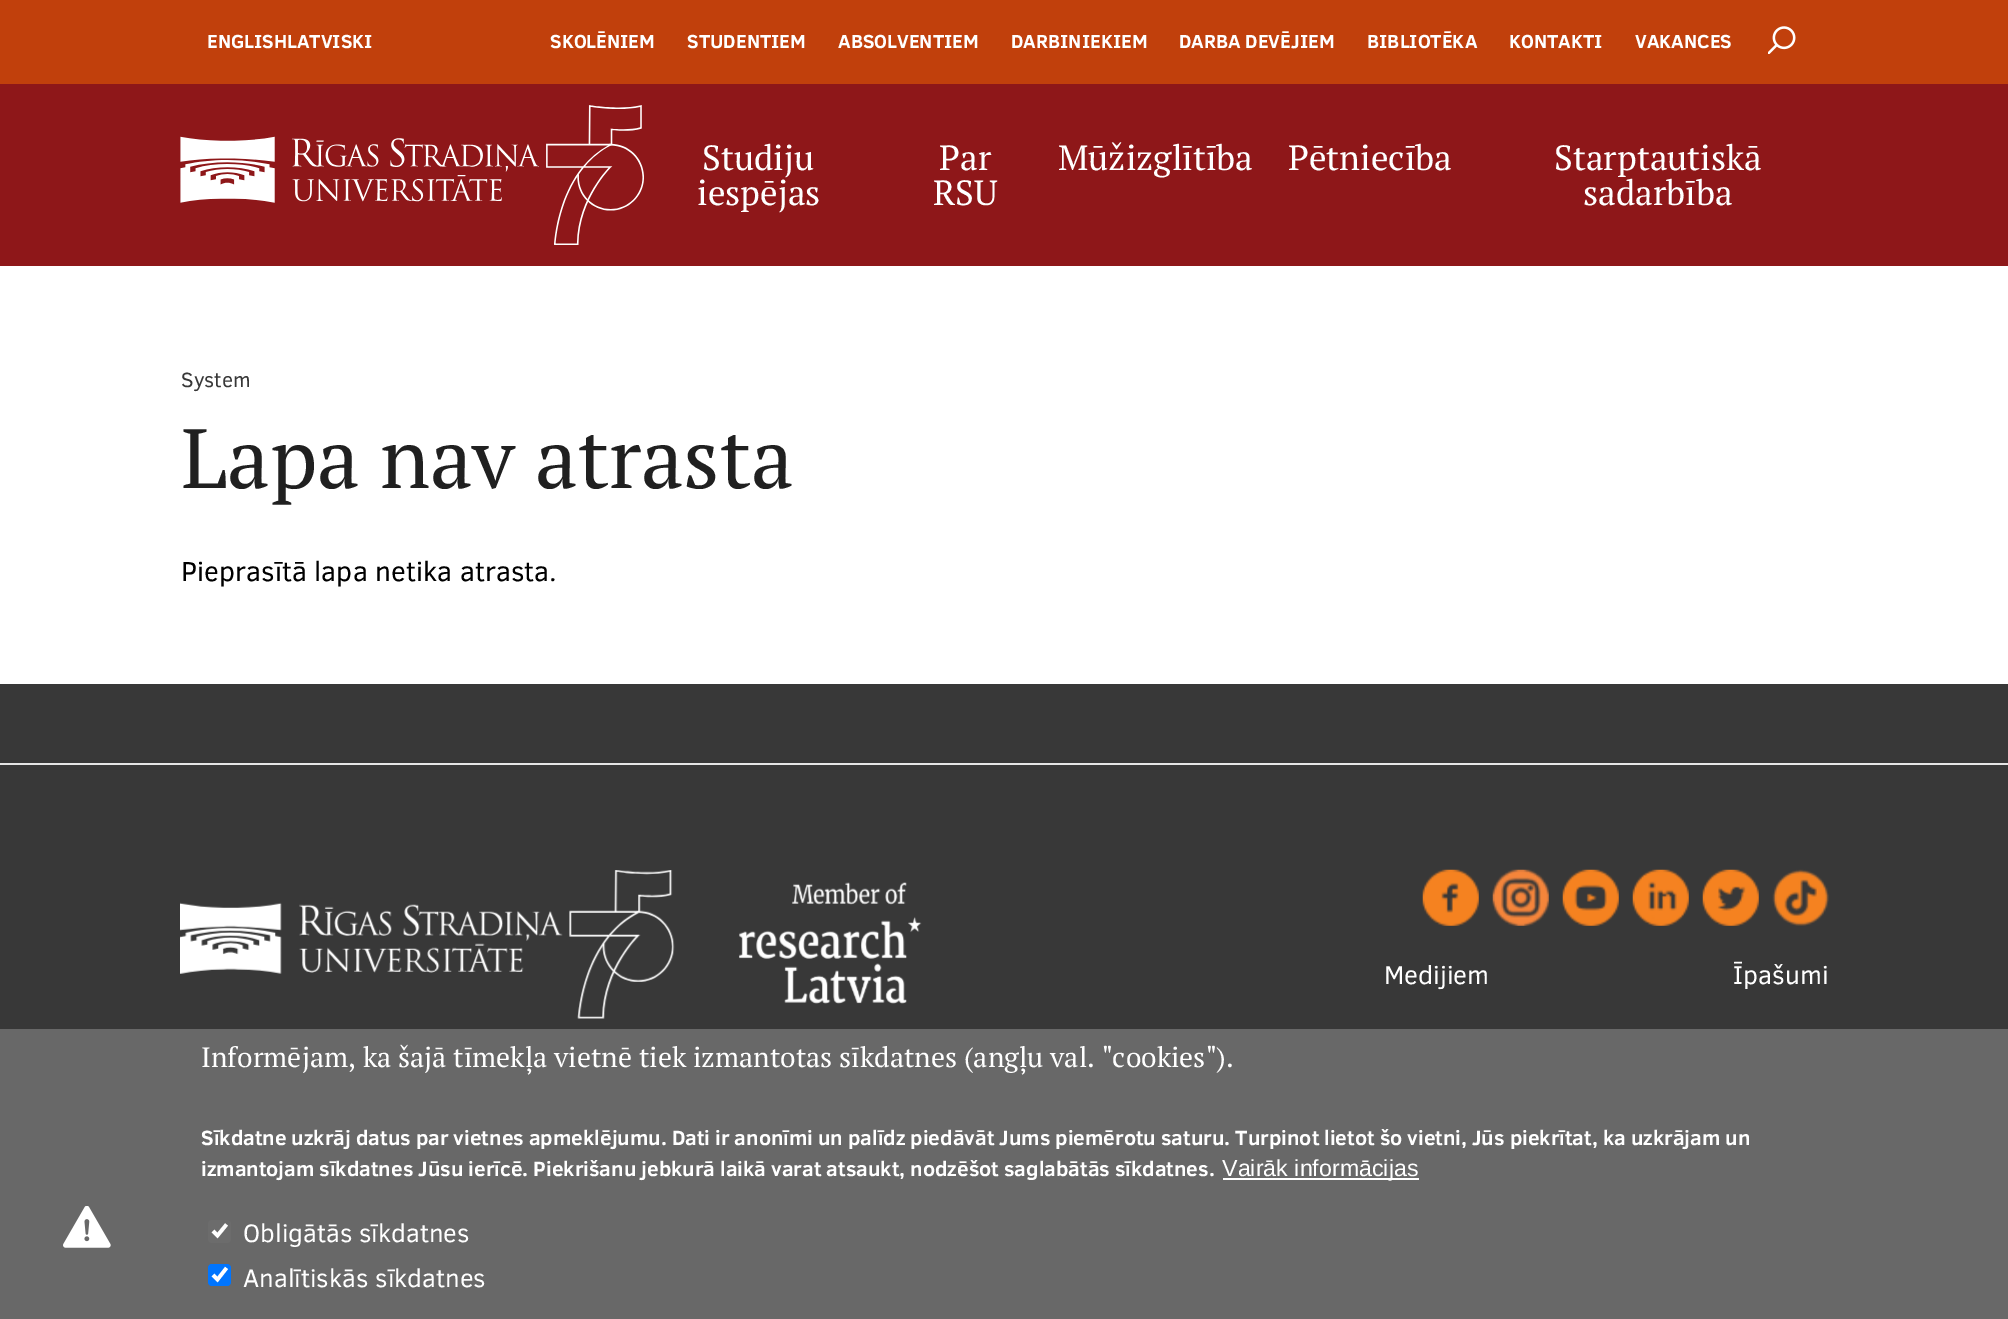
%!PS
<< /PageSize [2008 1319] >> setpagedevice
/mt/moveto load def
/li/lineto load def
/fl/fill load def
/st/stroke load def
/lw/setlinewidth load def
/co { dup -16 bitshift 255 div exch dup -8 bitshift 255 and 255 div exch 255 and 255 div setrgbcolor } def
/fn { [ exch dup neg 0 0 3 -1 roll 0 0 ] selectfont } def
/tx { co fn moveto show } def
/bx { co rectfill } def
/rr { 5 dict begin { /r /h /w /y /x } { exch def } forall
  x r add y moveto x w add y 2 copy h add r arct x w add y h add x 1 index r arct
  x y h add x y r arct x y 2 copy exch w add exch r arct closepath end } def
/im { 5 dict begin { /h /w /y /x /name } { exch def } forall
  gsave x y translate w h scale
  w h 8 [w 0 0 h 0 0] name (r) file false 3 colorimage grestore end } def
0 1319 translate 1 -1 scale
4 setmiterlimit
0 0 2008 1319 16#FFFFFF bx
0 0 2008 84 16#C1400C bx
(media/1.raw) 1768 26 28 28 im
0 84 2008 182 16#8E1719 bx
(media/2.raw) 180 105 464 140 im
0 684 2008 345 16#383838 bx
0 763 2008 2 16#E5E5E5 bx
(media/3.raw) 180 870 495 149 im
(media/4.raw) 739 882 183 122 im
(media/5.raw) 1422 869 57 57 im
(media/6.raw) 1492 869 57 57 im
(media/7.raw) 1562 869 57 57 im
(media/8.raw) 1632 869 57 57 im
(media/9.raw) 1702 869 57 57 im
(media/10.raw) 1772 869 57 57 im
0 1029 2008 290 16#686868 bx
(media/11.raw) 63 1206 48 42 im
1223 1178 196 2 16#FFFFFF bx
16#6C6C6C co
208 1220 23 23 4 rr fl
16#FFFFFF co
3.6 lw
213 1231 mt 217.5 1235.5 li 226.5 1224.5 li st
16#0075FF co
208 1264 23 22 4 rr fl
16#FFFFFF co
213 1275 mt 217.5 1279.5 li 226.5 1268 li st
(ENGLISHLATVISKI) 207 48 /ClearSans-Bold 19.25 16#FFFFFF tx
(SKOLĒNIEM) 550 48 /ClearSans-Bold 19.25 16#FFFFFF tx
(STUDENTIEM) 687 48 /ClearSans-Bold 19.25 16#FFFFFF tx
(ABSOLVENTIEM) 838 48 /ClearSans-Bold 19.25 16#FFFFFF tx
(DARBINIEKIEM) 1011 48 /ClearSans-Bold 19.25 16#FFFFFF tx
(DARBA DEVĒJIEM) 1179 48 /ClearSans-Bold 19.25 16#FFFFFF tx
(BIBLIOTĒKA) 1367 48 /ClearSans-Bold 19.25 16#FFFFFF tx
(KONTAKTI) 1509 48 /ClearSans-Bold 19.25 16#FFFFFF tx
(VAKANCES) 1635 48 /ClearSans-Bold 19.25 16#FFFFFF tx
(Studiju) 702 170 /PTSerif-Regular 35 16#FFFFFF tx
(iespējas) 697 205 /PTSerif-Regular 35 16#FFFFFF tx
(Par) 939 170 /PTSerif-Regular 35 16#FFFFFF tx
(RSU) 933 205 /PTSerif-Regular 35 16#FFFFFF tx
(Mūžizglītība) 1058 170 /PTSerif-Regular 35 16#FFFFFF tx
(Pētniecība) 1288 170 /PTSerif-Regular 35 16#FFFFFF tx
(Starptautiskā) 1554 170 /PTSerif-Regular 35 16#FFFFFF tx
(sadarbība) 1583 205 /PTSerif-Regular 35 16#FFFFFF tx
(System) 181 387 /ClearSans-Regular 21 16#383838 tx
(Lapa nav atrasta) 181 488 /PTSerif-Regular 84 16#202020 tx
(Pieprasītā lapa netika atrasta.) 181 581 /ClearSans-Regular 28 16#000000 tx
(Medijiem) 1384 984 /ClearSans-Regular 26.25 16#FFFFFF tx
(Īpašumi) 1733 984 /ClearSans-Regular 26.25 16#FFFFFF tx
(Informējam, ka šajā tīmekļa vietnē tiek izmantotas sīkdatnes \(angļu val. "cookies"\).) 201 1067 /PTSerif-Regular 28 16#FFFFFF tx
(Sīkdatne uzkrāj datus par vietnes apmeklējumu. Dati ir anonīmi un palīdz piedāvāt Jums piemērotu saturu. Turpinot lietot šo vietni, Jūs piekrītat, ka uzkrājam un) 201 1145 /ClearSans-Bold 21 16#FFFFFF tx
(izmantojam sīkdatnes Jūsu ierīcē. Piekrišanu jebkurā laikā varat atsaukt, nodzēšot saglabātās sīkdatnes.) 201 1176 /ClearSans-Bold 21 16#FFFFFF tx
(Vairāk informācijas) 1222 1176 /LiberationSans-Regular 23.25 16#FFFFFF tx
(Obligātās sīkdatnes) 243 1242 /ClearSans-Regular 25.75 16#FFFFFF tx
(Analītiskās sīkdatnes) 243 1287 /ClearSans-Regular 25.75 16#FFFFFF tx
showpage
